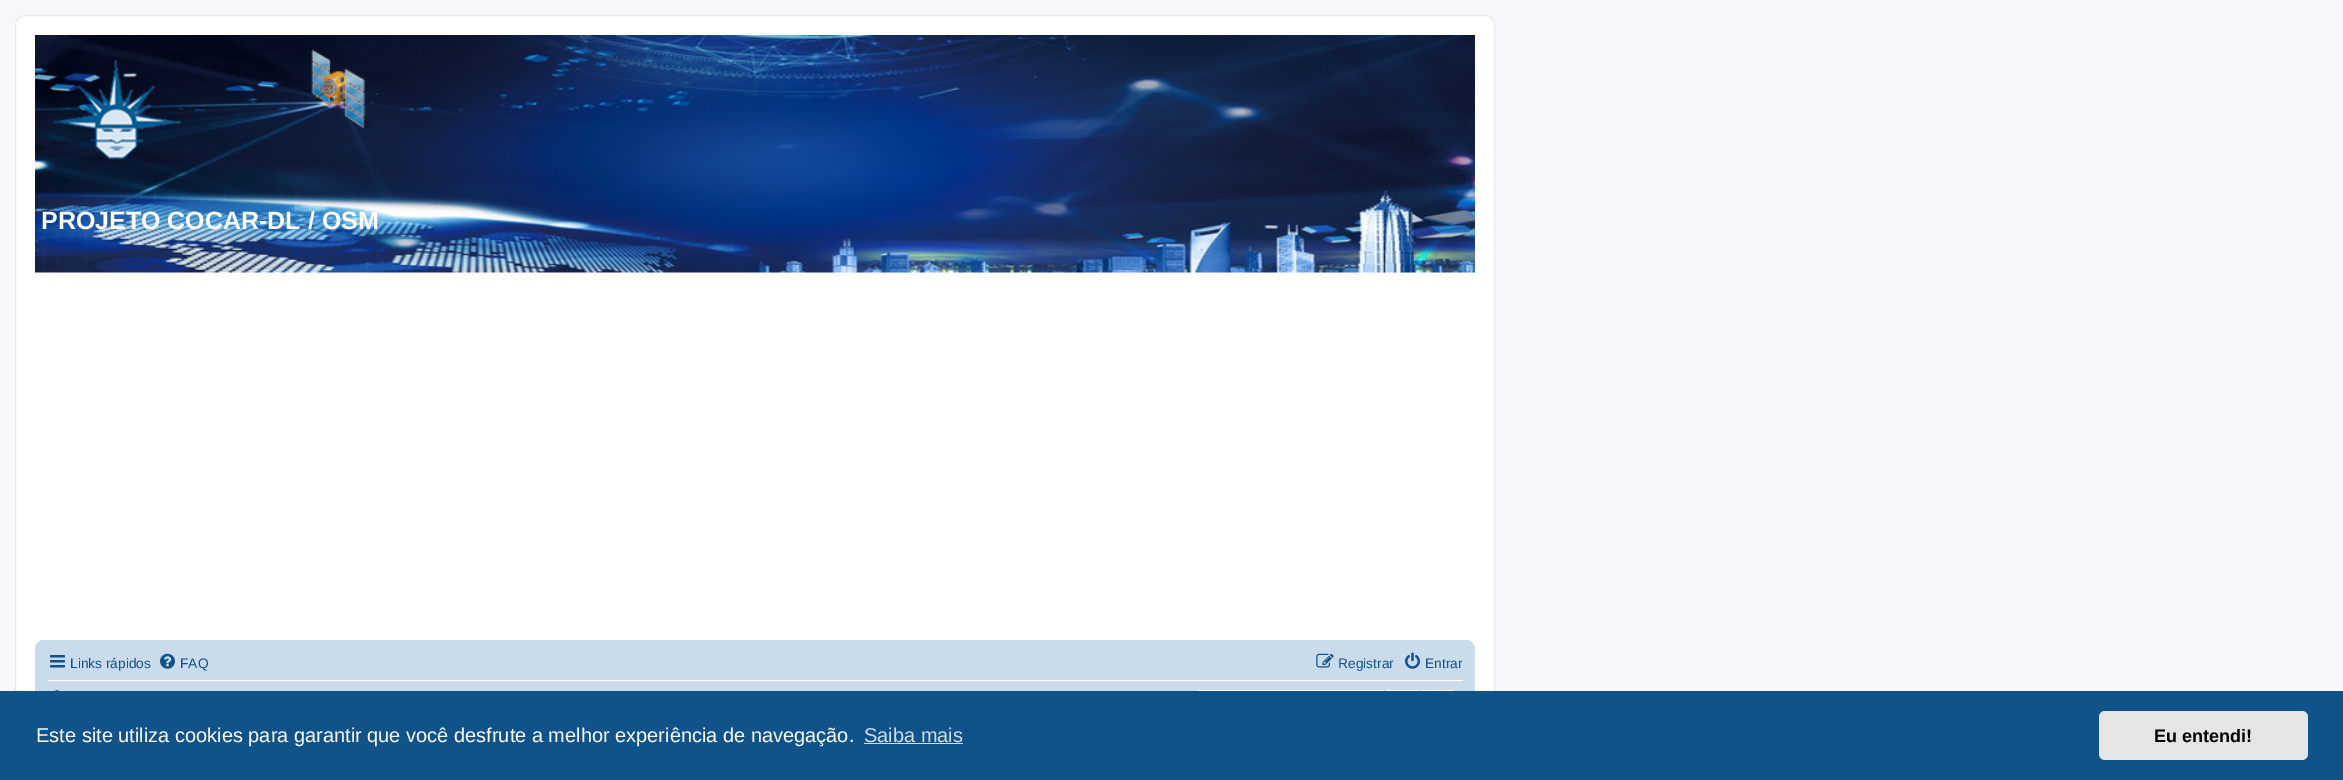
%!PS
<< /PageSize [2343 780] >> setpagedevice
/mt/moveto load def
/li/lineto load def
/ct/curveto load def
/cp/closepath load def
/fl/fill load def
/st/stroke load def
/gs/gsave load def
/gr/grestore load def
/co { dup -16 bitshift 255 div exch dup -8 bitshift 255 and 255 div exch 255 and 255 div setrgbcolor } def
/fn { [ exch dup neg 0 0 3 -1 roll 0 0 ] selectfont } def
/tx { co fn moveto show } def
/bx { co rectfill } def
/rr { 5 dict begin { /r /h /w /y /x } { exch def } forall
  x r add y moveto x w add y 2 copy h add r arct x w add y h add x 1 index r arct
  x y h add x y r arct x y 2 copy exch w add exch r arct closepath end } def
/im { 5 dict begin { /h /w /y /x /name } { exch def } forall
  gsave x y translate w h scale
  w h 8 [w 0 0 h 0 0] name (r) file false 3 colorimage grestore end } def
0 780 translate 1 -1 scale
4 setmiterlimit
0 0 2343 780 16#F5F7FA bx
16#FFFFFF co
15.5 15.5 1479 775 9.5 rr gs fl gr
16#E6E9ED co
st
(media/1.raw) 35 35 1440 238 im
(media/2.raw) 53 59 129 101 im
16#CADCEB co
35 640 1440 86 9 rr fl
(media/3.raw) 50 655 15 13 im
(media/4.raw) 160 653 15 16 im
(media/5.raw) 1316 653 18 15 im
(media/6.raw) 1405 652 15 17 im
48 680 1415 1 16#FFFFFF bx
(media/7.raw) 54 690 6 1 im
1201 690 mt 1384 690 li 1384 720 li 1201 720 li 1198 720 1196 718 1196 715 ct 1196 695 li 1196 692 1198 690 1201 690 ct cp fl
1385.5 690.5 34 29 rectstroke
1420 690 1 1 16#C7C3BF bx
1384 690 1 1 16#C7C3BF bx
16#FFFFFF co
1421.5 690.5 mt 1451 690.5 li 1453.5 690.5 1455.5 692.5 1455.5 695 ct 1455.5 715 li 1455.5 717.5 1453.5 719.5 1451 719.5 ct 1421.5 719.5 li cp st
0 691 2343 89 16#0F538A bx
864 743 99 1 16#CFDDE8 bx
16#E5E5E5 co
2099 711 209 49 6 rr fl
(PROJETO COCAR-DL / OSM) 41 229 /LiberationSans-Bold 25 16#FFFFFF tx
(Links rápidos) 70 668 /LiberationSans-Regular 13.75 16#105289 tx
(FAQ) 180 668 /LiberationSans-Regular 13.75 16#105289 tx
(Registrar) 1338 668 /LiberationSans-Regular 13.75 16#105289 tx
(Entrar) 1425 668 /LiberationSans-Regular 13.75 16#105289 tx
(Este site utiliza cookies para garantir que você desfrute a melhor experiência de navegação.) 36 742 /LiberationSans-Regular 20 16#FFFFFF tx
(Saiba mais) 864 742 /LiberationSans-Regular 20 16#CFDDE8 tx
(Eu entendi!) 2154 742 /LiberationSans-Bold 18 16#000000 tx
showpage
